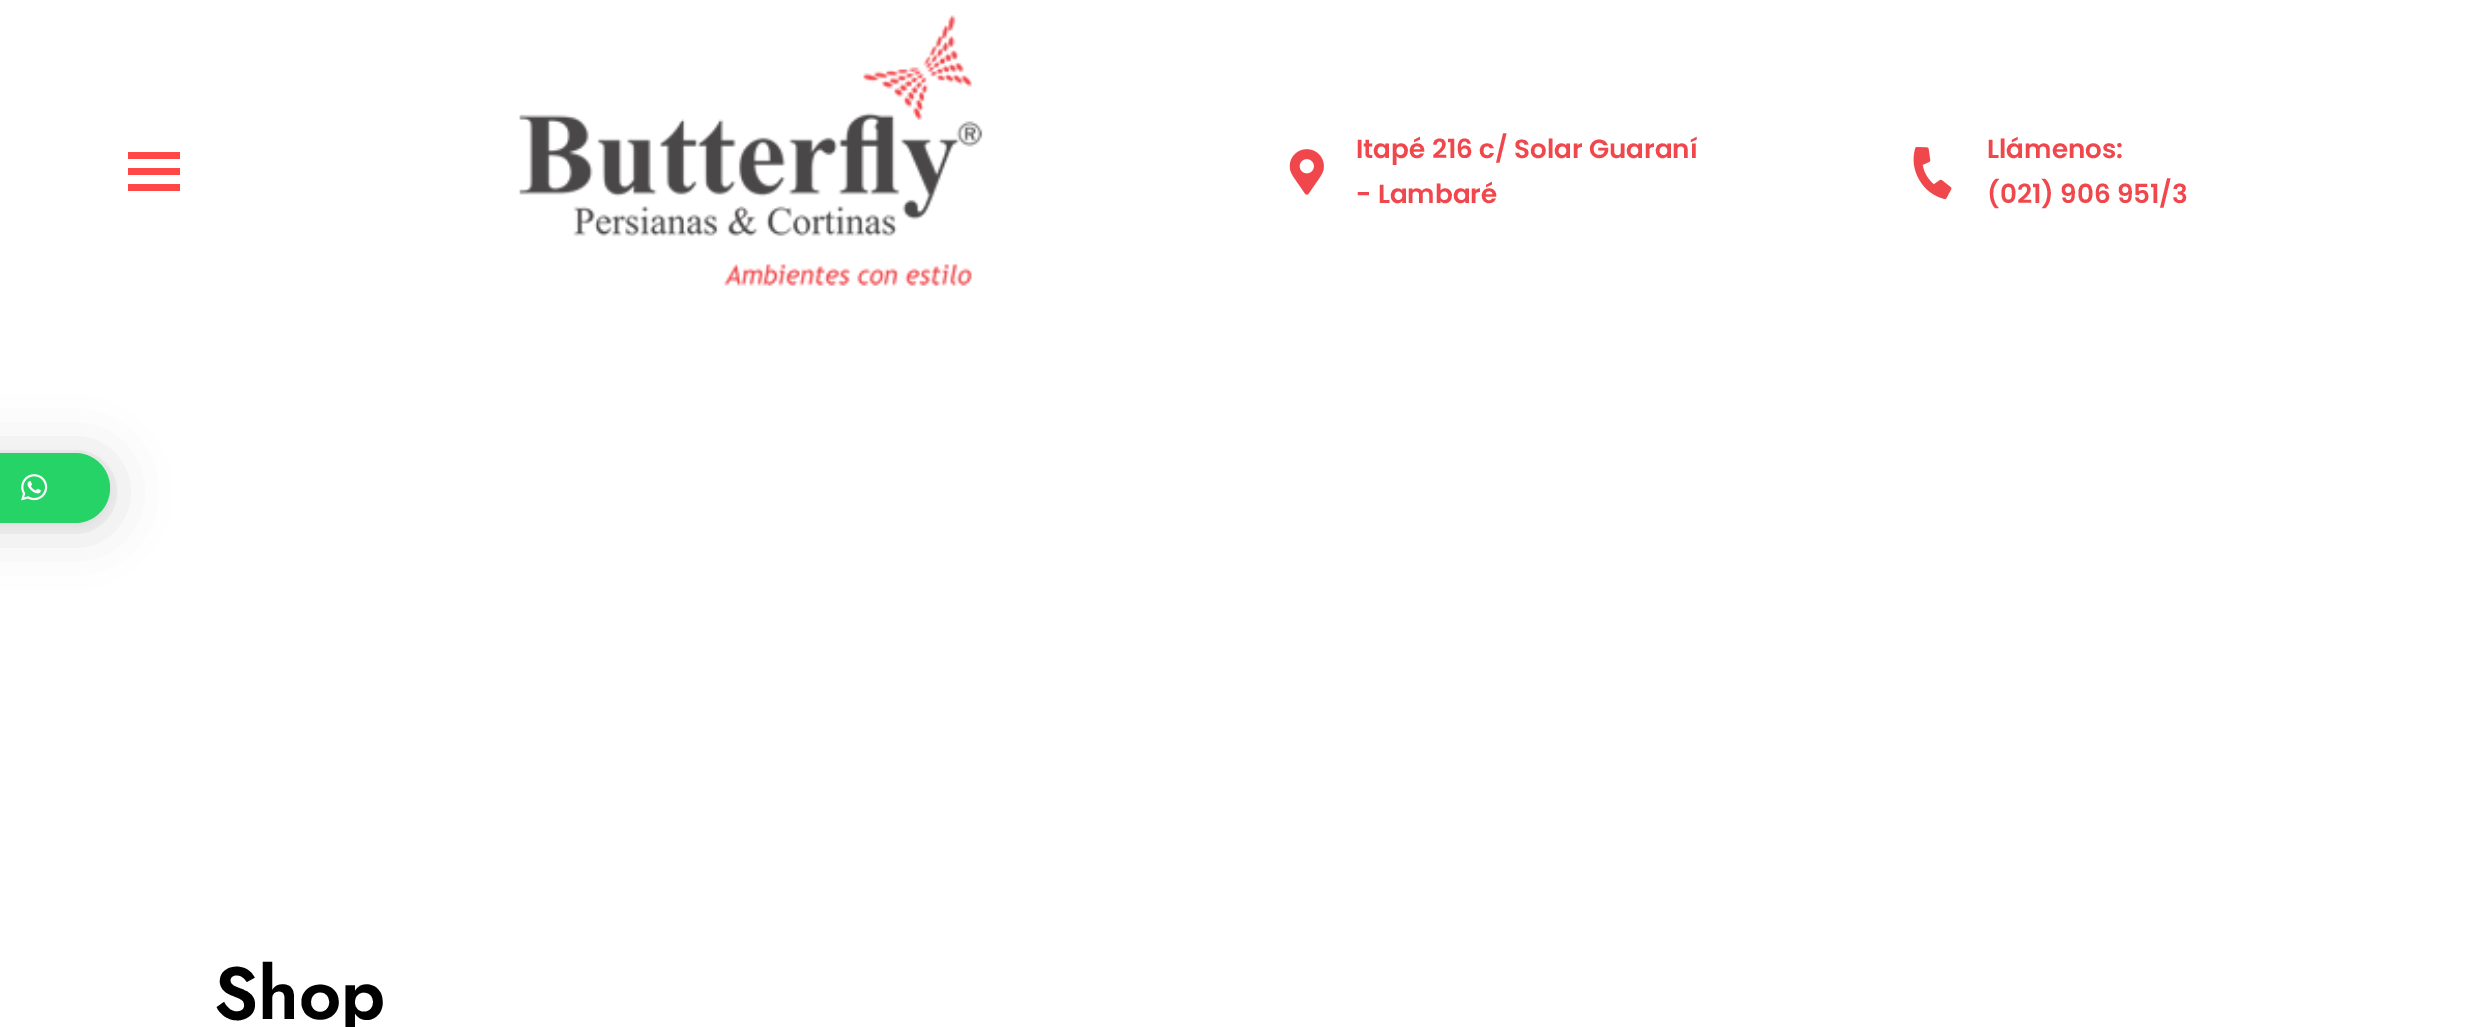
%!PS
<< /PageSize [2476 1027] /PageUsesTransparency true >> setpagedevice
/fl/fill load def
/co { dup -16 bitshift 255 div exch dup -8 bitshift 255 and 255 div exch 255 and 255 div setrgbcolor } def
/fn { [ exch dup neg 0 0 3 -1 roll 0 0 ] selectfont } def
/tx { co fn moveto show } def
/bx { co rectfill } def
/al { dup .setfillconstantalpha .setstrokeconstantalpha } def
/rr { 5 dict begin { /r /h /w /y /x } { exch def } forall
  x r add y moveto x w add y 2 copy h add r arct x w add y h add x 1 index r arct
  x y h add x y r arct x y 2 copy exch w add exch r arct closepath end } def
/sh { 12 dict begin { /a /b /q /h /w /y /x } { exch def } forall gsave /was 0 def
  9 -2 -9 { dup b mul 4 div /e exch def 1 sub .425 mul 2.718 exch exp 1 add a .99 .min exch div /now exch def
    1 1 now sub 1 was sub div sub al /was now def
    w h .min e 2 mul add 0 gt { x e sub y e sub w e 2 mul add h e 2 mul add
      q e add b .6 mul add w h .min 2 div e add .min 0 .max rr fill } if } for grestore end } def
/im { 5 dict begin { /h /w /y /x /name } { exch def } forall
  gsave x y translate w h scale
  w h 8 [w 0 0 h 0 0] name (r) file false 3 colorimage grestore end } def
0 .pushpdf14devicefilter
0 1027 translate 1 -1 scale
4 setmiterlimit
0 0 2476 1027 16#FFFFFF bx
128 152 52 7 16#FF4747 bx
128 168 52 7 16#FF4747 bx
128 184 52 7 16#FF4747 bx
(media/1.raw) 519 15 464 271 im
(media/2.raw) 1289 149 35 46 im
(media/3.raw) 1913 147 39 53 im
16#000000 co
-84 457 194 70 35 28 .16 sh
-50 455 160 70 35 5 .06 sh
16#25D366 co
-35 453 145 70 35 rr fl
(media/4.raw) 21 474 27 27 im
(Itapé 216 c/ Solar Guaraní) 1356 158 /Poppins-SemiBold 26.25 16#EF474C tx
(- Lambaré) 1356 203 /Poppins-SemiBold 26.25 16#EF474C tx
(Llámenos:) 1987 158 /Poppins-SemiBold 26.25 16#EF474C tx
(\(021\) 906 951/3) 1987 203 /Poppins-SemiBold 26.25 16#EF474C tx
(Shop) 214 1019 /Jost-SemiBold 73.5 16#000000 tx
.poppdf14devicefilter showpage
